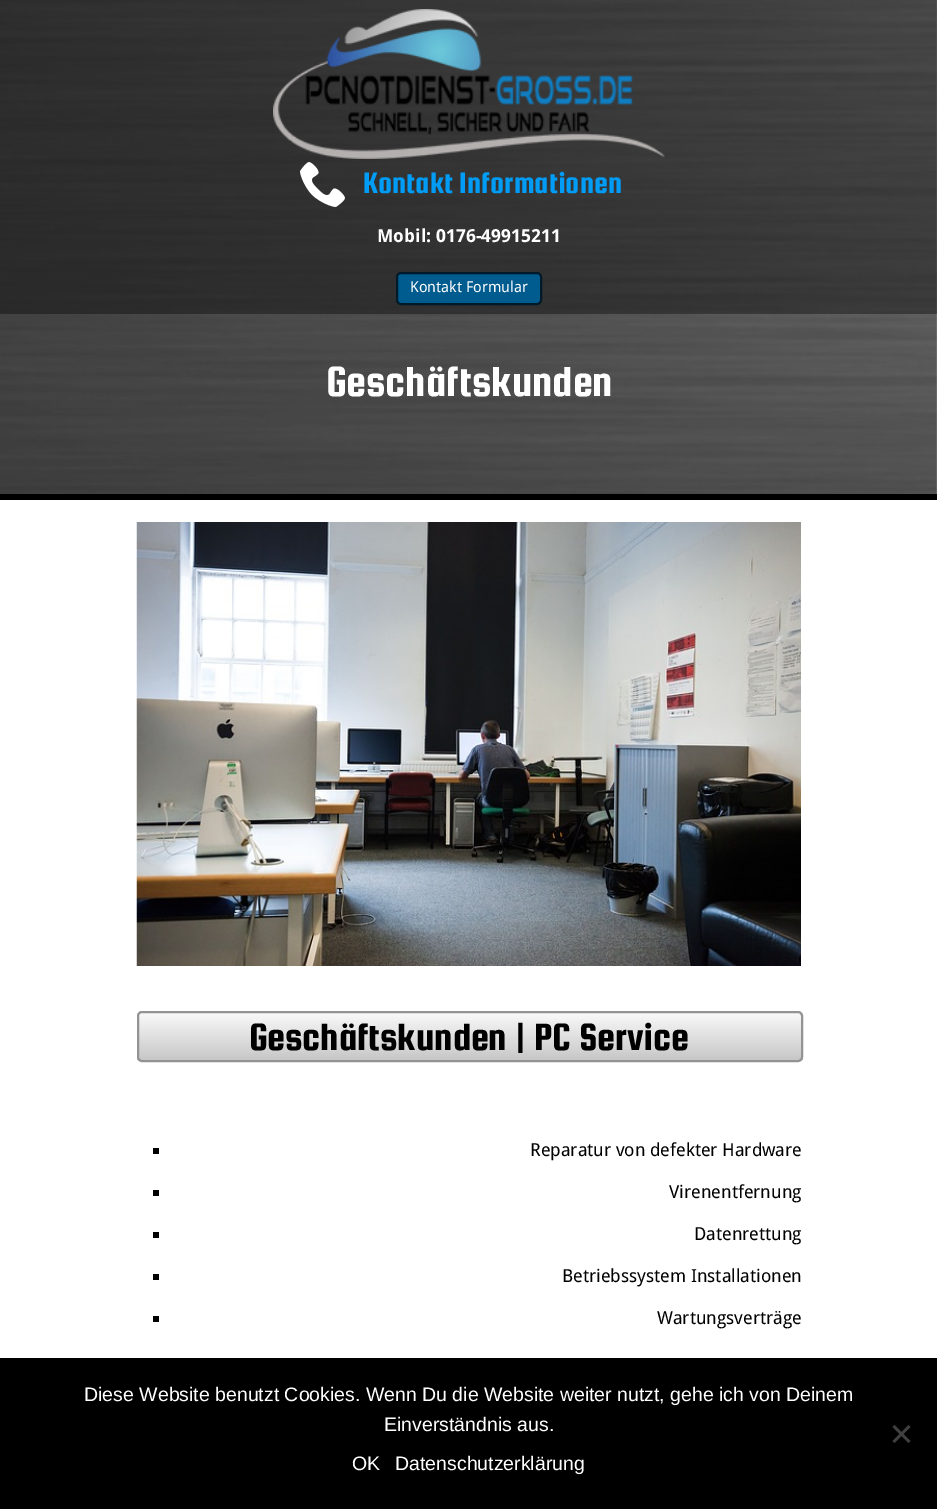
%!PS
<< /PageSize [937 1509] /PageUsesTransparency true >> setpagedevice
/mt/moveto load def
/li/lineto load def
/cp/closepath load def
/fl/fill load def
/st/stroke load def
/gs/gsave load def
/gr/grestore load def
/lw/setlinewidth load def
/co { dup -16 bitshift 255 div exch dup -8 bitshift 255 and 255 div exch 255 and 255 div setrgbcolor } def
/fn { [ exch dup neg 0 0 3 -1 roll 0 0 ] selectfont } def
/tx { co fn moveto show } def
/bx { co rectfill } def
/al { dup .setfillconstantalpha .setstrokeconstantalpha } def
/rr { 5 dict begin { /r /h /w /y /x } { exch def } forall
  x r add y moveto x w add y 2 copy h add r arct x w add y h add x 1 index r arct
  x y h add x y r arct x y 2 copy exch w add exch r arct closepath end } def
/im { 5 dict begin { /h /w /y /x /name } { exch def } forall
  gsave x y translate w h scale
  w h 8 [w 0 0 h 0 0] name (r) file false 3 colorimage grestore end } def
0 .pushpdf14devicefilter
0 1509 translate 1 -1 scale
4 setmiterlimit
0 0 937 1509 16#FFFFFF bx
(media/1.raw) 0 0 937 494 im
0.5 al
0 0 937 314 16#000000 bx
1 al
(media/2.raw) 273 9 392 150 im
(media/3.raw) 300 162 45 45 im
16#005B8F co
397 273 144 31 4 rr gs fl gr
16#001A29 co
2 lw
st
0.2 al
0 314 937 180 16#000000 bx
1 al
0 494 937 6 16#000000 bx
(media/4.raw) 136 522 665 444 im
gs
137 1011 666 51 5 rr clip newpath
gs 137 1013 mt 803 1013 li 803 1061 li 137 1061 li cp clip newpath
<< /ShadingType 2 /ColorSpace /DeviceRGB /Coords [138 1013 138 1061] /Extend [true true] /Function << /FunctionType 2 /Domain [0 1] /C0 [.976 .976 .976] /C1 [.776 .776 .776] /N 1 >> >> shfill gr
gr
16#939393 co
138 1012 664 49 4 rr st
153 1148 6 6 16#000000 bx
153 1190 6 6 16#000000 bx
153 1232 6 6 16#000000 bx
153 1274 6 6 16#000000 bx
153 1316 6 6 16#000000 bx
0 1358 937 151 16#000000 bx
16#404040 co
908.5 1425 mt 910.5 1427 li 894.5 1443 li 892.5 1441 li cp fl
892.5 1427 mt 894.5 1425 li 910.5 1441 li 908.5 1443 li cp fl
(Kontakt Informationen) 363 193 /SquadaOne-Regular 31.5 16#009CF5 tx
(Mobil: 0176-49915211) 377 242 /DroidSans-Bold 18 16#FFFFFF tx
(Kontakt Formular) 410 292 /DroidSans-Regular 15 16#FFFFFF tx
(Geschäftskunden) 326 396 /SquadaOne-Regular 45 16#FFFFFF tx
(Geschäftskunden | PC Service) 249 1050 /SquadaOne-Regular 40.5 16#000000 tx
(Reparatur von defekter Hardware) 530 1156 /DroidSans-Regular 18 16#000000 tx
(Virenentfernung) 669 1198 /DroidSans-Regular 18 16#000000 tx
(Datenrettung) 694 1240 /DroidSans-Regular 18 16#000000 tx
(Betriebssystem Installationen) 562 1282 /DroidSans-Regular 18 16#000000 tx
(Wartungsverträge) 657 1324 /DroidSans-Regular 18 16#000000 tx
(Diese Website benutzt Cookies. Wenn Du die Website weiter nutzt, gehe ich von Deinem) 84 1401 /LiberationSans-Regular 19.5 16#FFFFFF tx
(Einverständnis aus.) 384 1431 /LiberationSans-Regular 19.5 16#FFFFFF tx
(OK) 352 1470 /LiberationSans-Regular 19.5 16#FFFFFF tx
(Datenschutzerklärung) 395 1470 /LiberationSans-Regular 19.5 16#FFFFFF tx
.poppdf14devicefilter showpage
